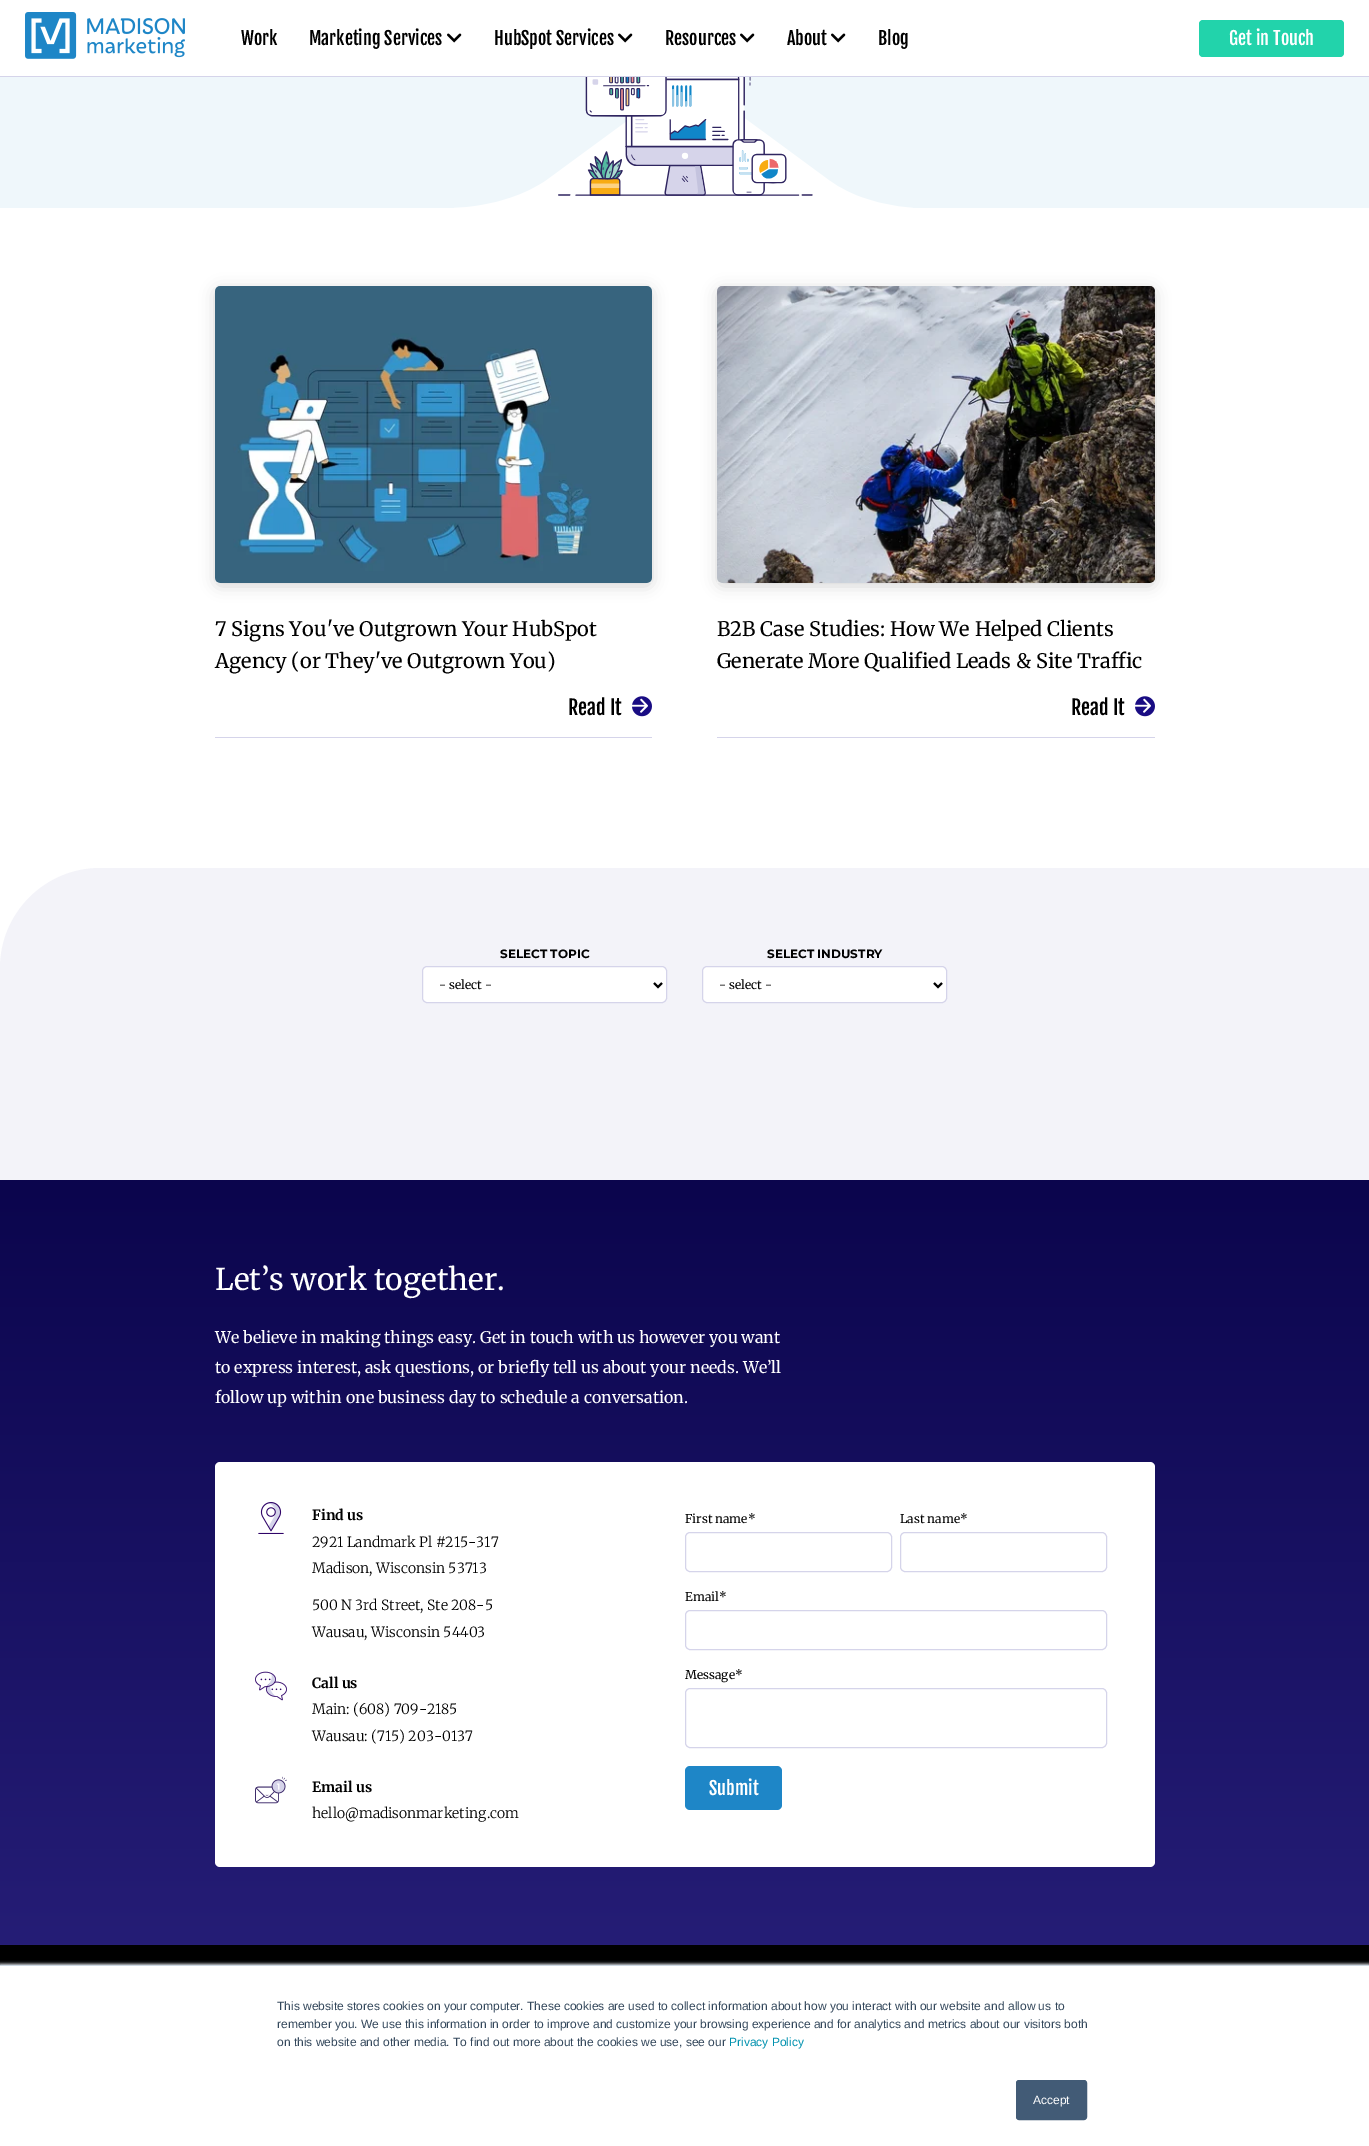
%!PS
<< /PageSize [1369 2146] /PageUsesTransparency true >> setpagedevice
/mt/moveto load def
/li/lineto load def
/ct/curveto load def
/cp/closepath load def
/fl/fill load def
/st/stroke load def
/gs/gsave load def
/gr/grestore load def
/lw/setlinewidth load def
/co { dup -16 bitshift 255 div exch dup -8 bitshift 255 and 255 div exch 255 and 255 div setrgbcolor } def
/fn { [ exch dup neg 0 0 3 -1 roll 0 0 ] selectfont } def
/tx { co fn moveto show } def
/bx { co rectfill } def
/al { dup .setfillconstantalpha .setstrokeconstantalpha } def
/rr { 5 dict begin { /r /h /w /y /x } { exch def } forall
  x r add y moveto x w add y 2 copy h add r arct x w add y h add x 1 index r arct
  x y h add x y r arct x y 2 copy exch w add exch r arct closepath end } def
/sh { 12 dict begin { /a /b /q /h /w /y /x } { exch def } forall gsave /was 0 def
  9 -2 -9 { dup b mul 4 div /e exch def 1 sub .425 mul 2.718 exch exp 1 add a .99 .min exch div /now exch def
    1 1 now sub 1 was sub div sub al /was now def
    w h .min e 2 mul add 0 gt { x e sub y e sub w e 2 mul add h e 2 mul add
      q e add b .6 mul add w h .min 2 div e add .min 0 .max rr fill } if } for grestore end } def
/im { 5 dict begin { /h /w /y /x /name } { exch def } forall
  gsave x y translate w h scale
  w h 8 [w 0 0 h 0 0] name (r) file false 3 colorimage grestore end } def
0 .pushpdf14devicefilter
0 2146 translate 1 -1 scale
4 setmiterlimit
0 0 1369 2146 16#000000 bx
0 0 1369 76 16#FFFFFF bx
0 76 1369 1 16#D5D4EA bx
(media/1.raw) 25 12 160 47 im
(media/2.raw) 447 33 15 10 im
(media/2.raw) 618 33 15 10 im
(media/2.raw) 740 33 15 10 im
(media/2.raw) 831 33 15 10 im
16#22D3AB co
1199 20 145 37 4 rr fl
0 208 1369 760 16#FFFFFF bx
0 77 1369 131 16#EFF7FB bx
(media/3.raw) 454 77 459 131 im
215 737 437 1 16#D5D4EA bx
16#000000 co
215 289 437 297 5 7.5 .16 sh
(media/4.raw) 215 286 437 297 im
(media/5.raw) 632 696 20 21 im
717 737 438 1 16#D5D4EA bx
16#000000 co
717 289 438 297 5 7.5 .16 sh
(media/6.raw) 717 286 438 297 im
(media/5.raw) 1135 696 20 21 im
16#F3F3F9 co
100 868 mt 1369 868 li 1369 1180 li 0 1180 li 0 968 li 0 913 45 868 100 868 ct cp fl
16#FFFFFF co
422.5 966.5 244 36 4.5 rr gs fl gr
16#D5D4EA co
st
16#000000 co
2 lw
654 983 mt 658 987 li 662 983 li st
16#FFFFFF co
702.5 966.5 244 36 4.5 rr gs fl gr
16#D5D4EA co
1 lw
st
16#000000 co
2 lw
934 983 mt 938 987 li 942 983 li st
gs 0 1180 mt 1369 1180 li 1369 1945 li 0 1945 li cp clip newpath
<< /ShadingType 2 /ColorSpace /DeviceRGB /Coords [685 1180 685 1945] /Extend [true true] /Function << /FunctionType 2 /Domain [0 1] /C0 [.043 .02 .302] /C1 [.145 .114 .463] /N 1 >> >> shfill gr
16#FFFFFF co
215 1462 940 405 5 rr fl
(media/7.raw) 258 1502 26 32 im
(media/8.raw) 255 1671 32 30 im
(media/9.raw) 255 1776 32 28 im
16#D5D4EA co
1 lw
685.5 1532.5 206 39 4.5 rr st
900.5 1532.5 206 39 4.5 rr st
685.5 1610.5 421 39 4.5 rr st
685.5 1688.5 421 59 4.5 rr st
16#1E86C7 co
685 1766 97 44 5 rr fl
16#EAF0F6 co
0 1964 1369 181 0 1.5 1 sh
0 1966 1369 180 16#FFFFFF bx
0 1965 1369 1 16#CBD6E2 bx
16#425B76 co
1016.5 2080.5 70 39 2.5 rr gs fl gr
st
(Work) 241 45 /FjallaOne-Regular 18 16#000000 tx
(Marketing Services) 309 45 /FjallaOne-Regular 18 16#000000 tx
(HubSpot Services) 494 45 /FjallaOne-Regular 18 16#000000 tx
(Resources) 665 45 /FjallaOne-Regular 18 16#000000 tx
(About) 787 45 /FjallaOne-Regular 18 16#000000 tx
(Blog) 878 45 /FjallaOne-Regular 18 16#000000 tx
(Get in Touch) 1229 45 /FjallaOne-Regular 18 16#FFFFFF tx
(7 Signs You've Outgrown Your HubSpot) 215 636 /Merriweather-Regular 20 16#000000 tx
(Agency \(or They've Outgrown You\)) 215 668 /Merriweather-Regular 20 16#000000 tx
(Read It) 568 715 /FjallaOne-Regular 20 16#000000 tx
(B2B Case Studies: How We Helped Clients) 717 636 /Merriweather-Regular 20 16#000000 tx
(Generate More Qualified Leads & Site Traffic) 717 668 /Merriweather-Regular 20 16#000000 tx
(Read It) 1071 715 /FjallaOne-Regular 20 16#000000 tx
(SELECT TOPIC) 500 958 /Montserrat-Bold 12 16#000000 tx
(- select -) 439 989 /Merriweather-Regular 12 16#000000 tx
(SELECT INDUSTRY) 767 958 /Montserrat-Bold 12 16#000000 tx
(- select -) 719 989 /Merriweather-Regular 12 16#000000 tx
(Let’s work together.) 215 1290 /Merriweather-Regular 30 16#FFFFFF tx
(We believe in making things easy. Get in touch with us however you want) 215 1343 /Merriweather-Regular 16 16#FFFFFF tx
(to express interest, ask questions, or briefly tell us about your needs. We’ll) 215 1373 /Merriweather-Regular 16 16#FFFFFF tx
(follow up within one business day to schedule a conversation.) 215 1403 /Merriweather-Regular 16 16#FFFFFF tx
(Find us) 312 1520 /Merriweather-Bold 14 16#000000 tx
(2921 Landmark Pl #215-317) 312 1547 /Merriweather-Light 14 16#000000 tx
(Madison, Wisconsin 53713) 312 1573 /Merriweather-Light 14 16#000000 tx
(500 N 3rd Street, Ste 208-5) 312 1610 /Merriweather-Light 14 16#000000 tx
(Wausau, Wisconsin 54403) 312 1637 /Merriweather-Light 14 16#000000 tx
(Call us) 312 1688 /Merriweather-Bold 14 16#000000 tx
(Main: \(608\) 709-2185) 312 1714 /Merriweather-Light 14 16#000000 tx
(Wausau: \(715\) 203-0137) 312 1741 /Merriweather-Light 14 16#000000 tx
(Email us) 312 1792 /Merriweather-Bold 14 16#000000 tx
(hello@madisonmarketing.com) 312 1818 /Merriweather-Light 14 16#000000 tx
(First name*) 685 1523 /Merriweather-Regular 12 16#000000 tx
(Last name*) 900 1523 /Merriweather-Regular 12 16#000000 tx
(Email*) 685 1601 /Merriweather-Regular 12 16#000000 tx
(Message*) 685 1679 /Merriweather-Regular 12 16#000000 tx
(Submit) 709 1795 /FjallaOne-Regular 18 16#FFFFFF tx
(This website stores cookies on your computer. These cookies are used to collect information about how you interact with our website and allow us to) 277 2010 /LiberationSans-Regular 12 16#33475B tx
(remember you. We use this information in order to improve and customize your browsing experience and for analytics and metrics about our visitors both) 277 2028 /LiberationSans-Regular 12 16#33475B tx
(on this website and other media. To find out more about the cookies we use, see our) 277 2046 /LiberationSans-Regular 12 16#33475B tx
(Privacy Policy) 729 2046 /LiberationSans-Regular 12 16#0091AE tx
(Accept) 1033 2104 /LiberationSans-Regular 12 16#FFFFFF tx
.poppdf14devicefilter showpage
